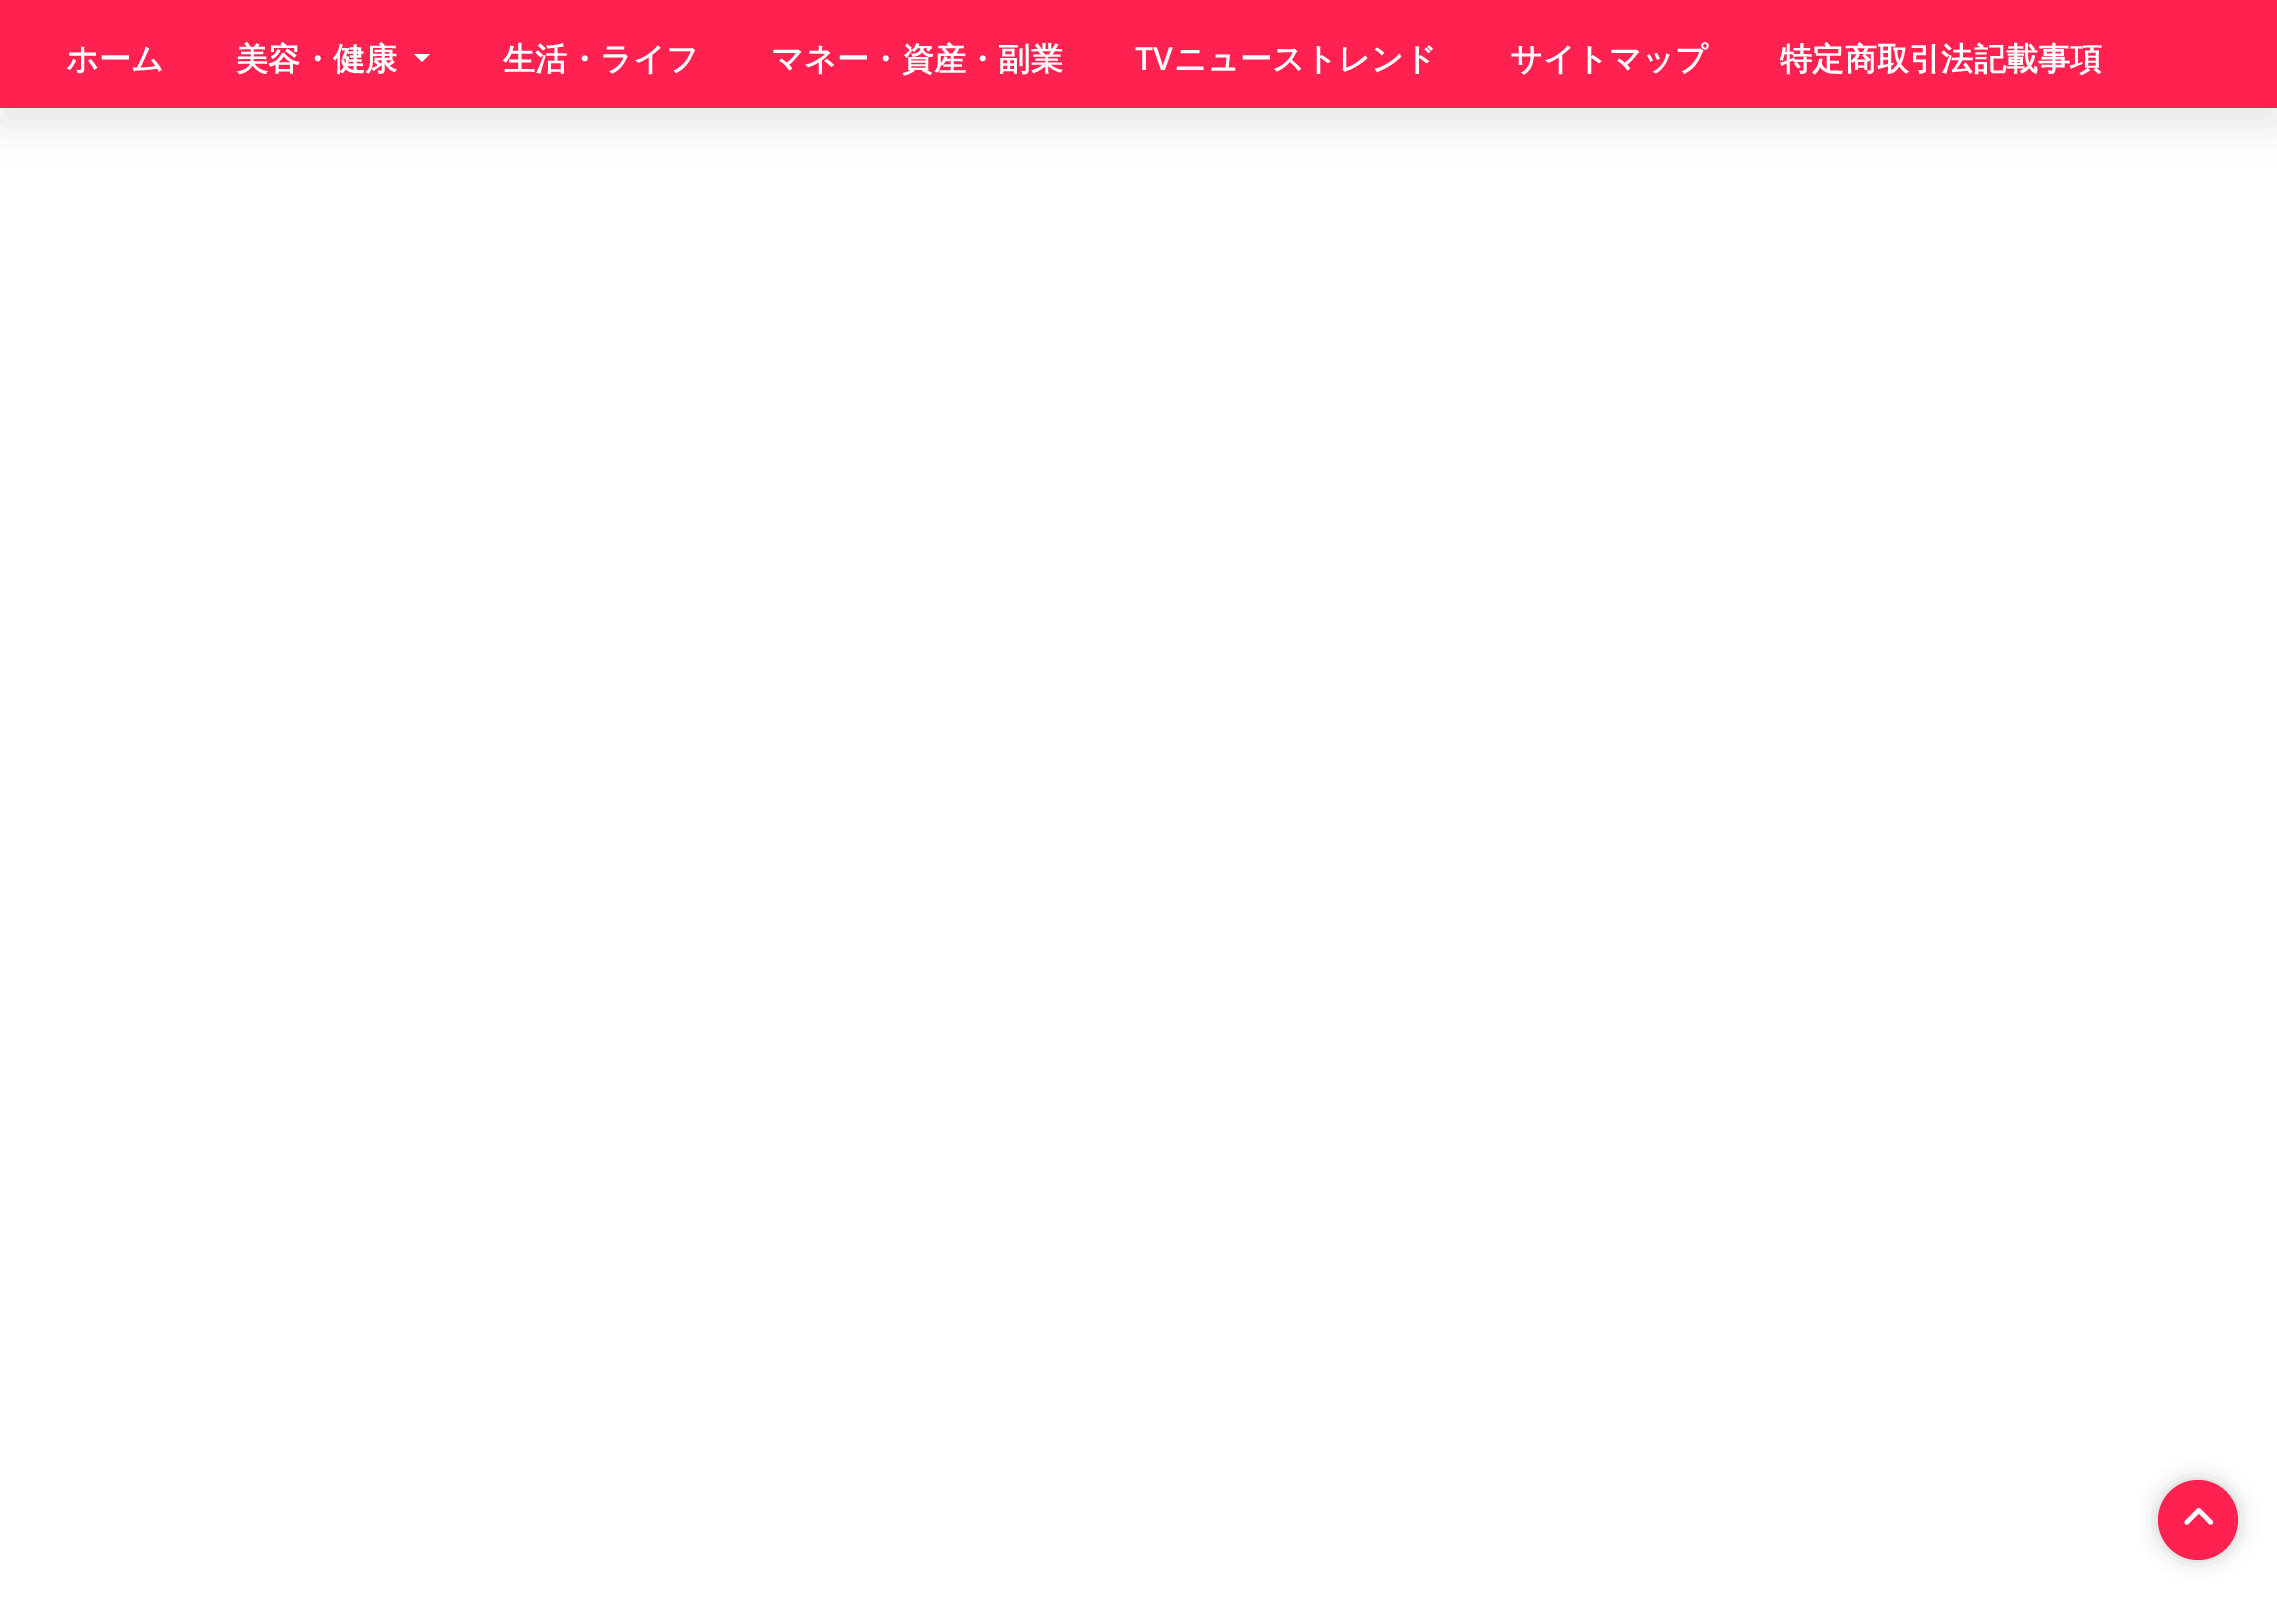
%!PS
<< /PageSize [2277 1600] /PageUsesTransparency true >> setpagedevice
/mt/moveto load def
/li/lineto load def
/cp/closepath load def
/fl/fill load def
/co { dup -16 bitshift 255 div exch dup -8 bitshift 255 and 255 div exch 255 and 255 div setrgbcolor } def
/fn { [ exch dup neg 0 0 3 -1 roll 0 0 ] selectfont } def
/bx { co rectfill } def
/al { dup .setfillconstantalpha .setstrokeconstantalpha } def
/ci { newpath 0 360 arc closepath } def
/rr { 5 dict begin { /r /h /w /y /x } { exch def } forall
  x r add y moveto x w add y 2 copy h add r arct x w add y h add x 1 index r arct
  x y h add x y r arct x y 2 copy exch w add exch r arct closepath end } def
/sh { 12 dict begin { /a /b /q /h /w /y /x } { exch def } forall gsave /was 0 def
  9 -2 -9 { dup b mul 4 div /e exch def 1 sub .425 mul 2.718 exch exp 1 add a .99 .min exch div /now exch def
    1 1 now sub 1 was sub div sub al /was now def
    w h .min e 2 mul add 0 gt { x e sub y e sub w e 2 mul add h e 2 mul add
      q e add b .6 mul add w h .min 2 div e add .min 0 .max rr fill } if } for grestore end } def
/im { 5 dict begin { /h /w /y /x /name } { exch def } forall
  gsave x y translate w h scale
  w h 8 [w 0 0 h 0 0] name (r) file false 3 colorimage grestore end } def
0 .pushpdf14devicefilter
0 1600 translate 1 -1 scale
4 setmiterlimit
0 0 2277 1600 16#FFFFFF bx
16#000000 co
0 16 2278 108 0 20 .1 sh
0 0 2277 108 16#FF214F bx
16#FFFFFF co
414 54 mt 430 54 li 422 62 li cp fl
16#000000 co
2158 1480 80 80 40 10 .2 sh
16#FF214F co
2198 1520 40 ci fl
(media/1.raw) 2184 1508 30 17 im
/WenQuanYiZenHei-Bold 32 fn
16#FFFFFF co
66 70 mt .25 0 (ホーム) ashow
236 70 mt .25 0 (美容・健康) ashow
503 70 mt .25 0 (生活・ライフ) ashow
771 70 mt .25 0 (マネー・資産・副業) ashow
/OpenSans-SemiBold 32 fn
1135 70 mt .25 0 (TV) ashow
/WenQuanYiZenHei-Bold 32 fn
1174 70 mt .25 0 (ニューストレンド) ashow
1510 70 mt .25 0 (サイトマップ) ashow
1780 70 mt .25 0 (特定商取引法記載事項) ashow
.poppdf14devicefilter showpage
